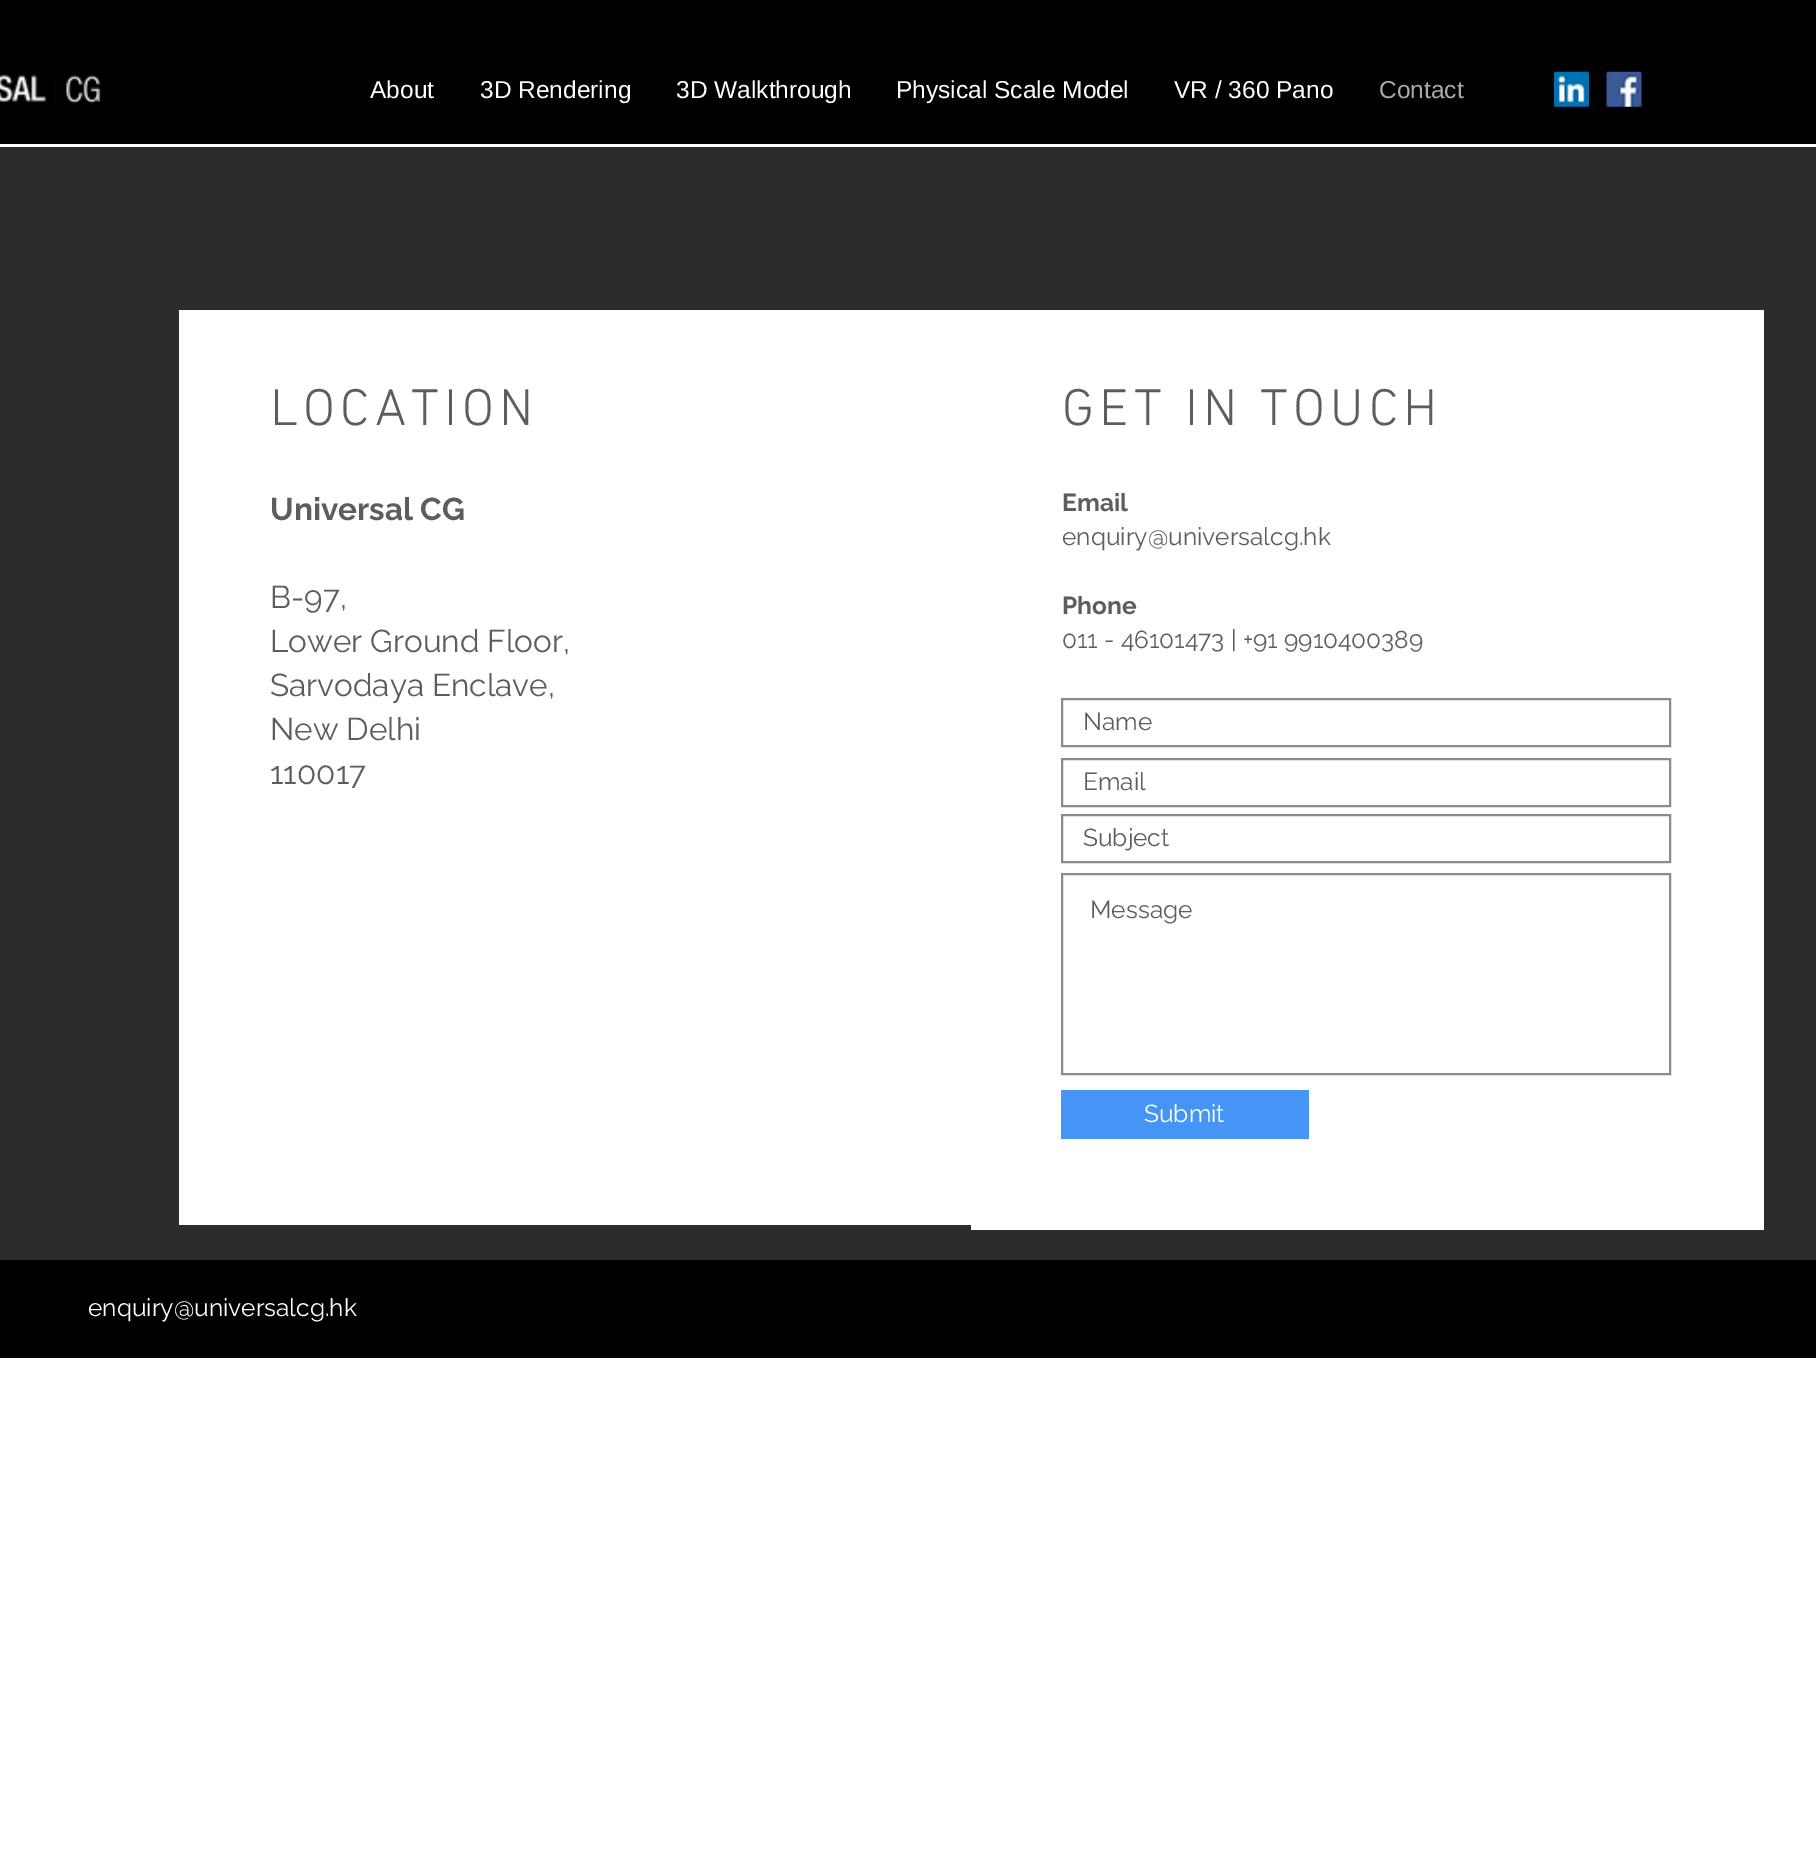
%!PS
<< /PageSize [1816 1867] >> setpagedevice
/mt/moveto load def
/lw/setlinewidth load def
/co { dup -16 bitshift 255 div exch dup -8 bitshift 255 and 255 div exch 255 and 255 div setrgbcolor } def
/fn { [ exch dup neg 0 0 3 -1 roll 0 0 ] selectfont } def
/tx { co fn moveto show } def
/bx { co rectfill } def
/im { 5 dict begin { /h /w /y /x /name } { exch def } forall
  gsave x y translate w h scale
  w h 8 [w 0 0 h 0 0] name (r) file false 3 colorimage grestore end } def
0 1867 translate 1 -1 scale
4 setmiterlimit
0 0 1816 1867 16#FFFFFF bx
0 0 1816 144 16#000000 bx
(media/1.raw) 0 74 101 30 im
(media/2.raw) 1554 71 35 36 im
(media/3.raw) 1606 71 36 36 im
0 147 1816 1113 16#2C2C2B bx
179 310 792 915 16#FFFFFF bx
971 310 793 920 16#FFFFFF bx
16#8B8B8A co
2 lw
1062 699 608 47 rectstroke
1062 759 608 47 rectstroke
1062 815 608 47 rectstroke
1062 874 608 200 rectstroke
1061 1090 248 49 16#4595F7 bx
0 1260 1816 98 16#000000 bx
(About) 370 98 /LiberationSans-Regular 24.5 16#FFFFFF tx
(3D Rendering) 480 98 /LiberationSans-Regular 24.5 16#FFFFFF tx
(3D Walkthrough) 676 98 /LiberationSans-Regular 24.5 16#FFFFFF tx
(Physical Scale Model) 896 98 /LiberationSans-Regular 24.5 16#FFFFFF tx
(VR / 360 Pano) 1174 98 /LiberationSans-Regular 24.5 16#FFFFFF tx
(Contact) 1379 98 /LiberationSans-Regular 24.5 16#ACA9A9 tx
/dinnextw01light-Light 52.5 fn
16#5E5D5D co
270 425 mt 5.25 0 (LOCATION) ashow
(Universal CG) 270 520 /Raleway-Bold 31.5 16#5E5D5D tx
(B-97,) 270 608 /Raleway-Regular 31.5 16#5E5D5D tx
(Lower Ground Floor,) 270 652 /Raleway-Regular 31.5 16#5E5D5D tx
(Sarvodaya Enclave,) 270 696 /Raleway-Regular 31.5 16#5E5D5D tx
(New Delhi) 270 740 /Raleway-Regular 31.5 16#5E5D5D tx
(110017) 270 784 /Raleway-Regular 31.5 16#5E5D5D tx
/dinnextw01light-Light 52.5 fn
1062 425 mt 5.25 0 (GET IN TOUCH) ashow
(Email) 1062 511 /Raleway-Bold 24.5 16#5E5D5D tx
(enquiry@universalcg.hk) 1062 545 /Raleway-Regular 24.5 16#5E5D5D tx
(Phone) 1062 614 /Raleway-Bold 24.5 16#5E5D5D tx
(011 - 46101473 | +91 9910400389) 1062 648 /Raleway-Regular 24.5 16#5E5D5D tx
(Name) 1083 730 /Raleway-Regular 24.5 16#5E5D5D tx
(Email) 1083 790 /Raleway-Regular 24.5 16#5E5D5D tx
(Subject) 1083 846 /Raleway-Regular 24.5 16#5E5D5D tx
(Message) 1090 918 /Raleway-Regular 24.5 16#5E5D5D tx
(Submit) 1144 1122 /Raleway-Regular 24.5 16#FFFFFF tx
(enquiry@universalcg.hk) 88 1316 /Raleway-Regular 24.5 16#FFFFFF tx
showpage
